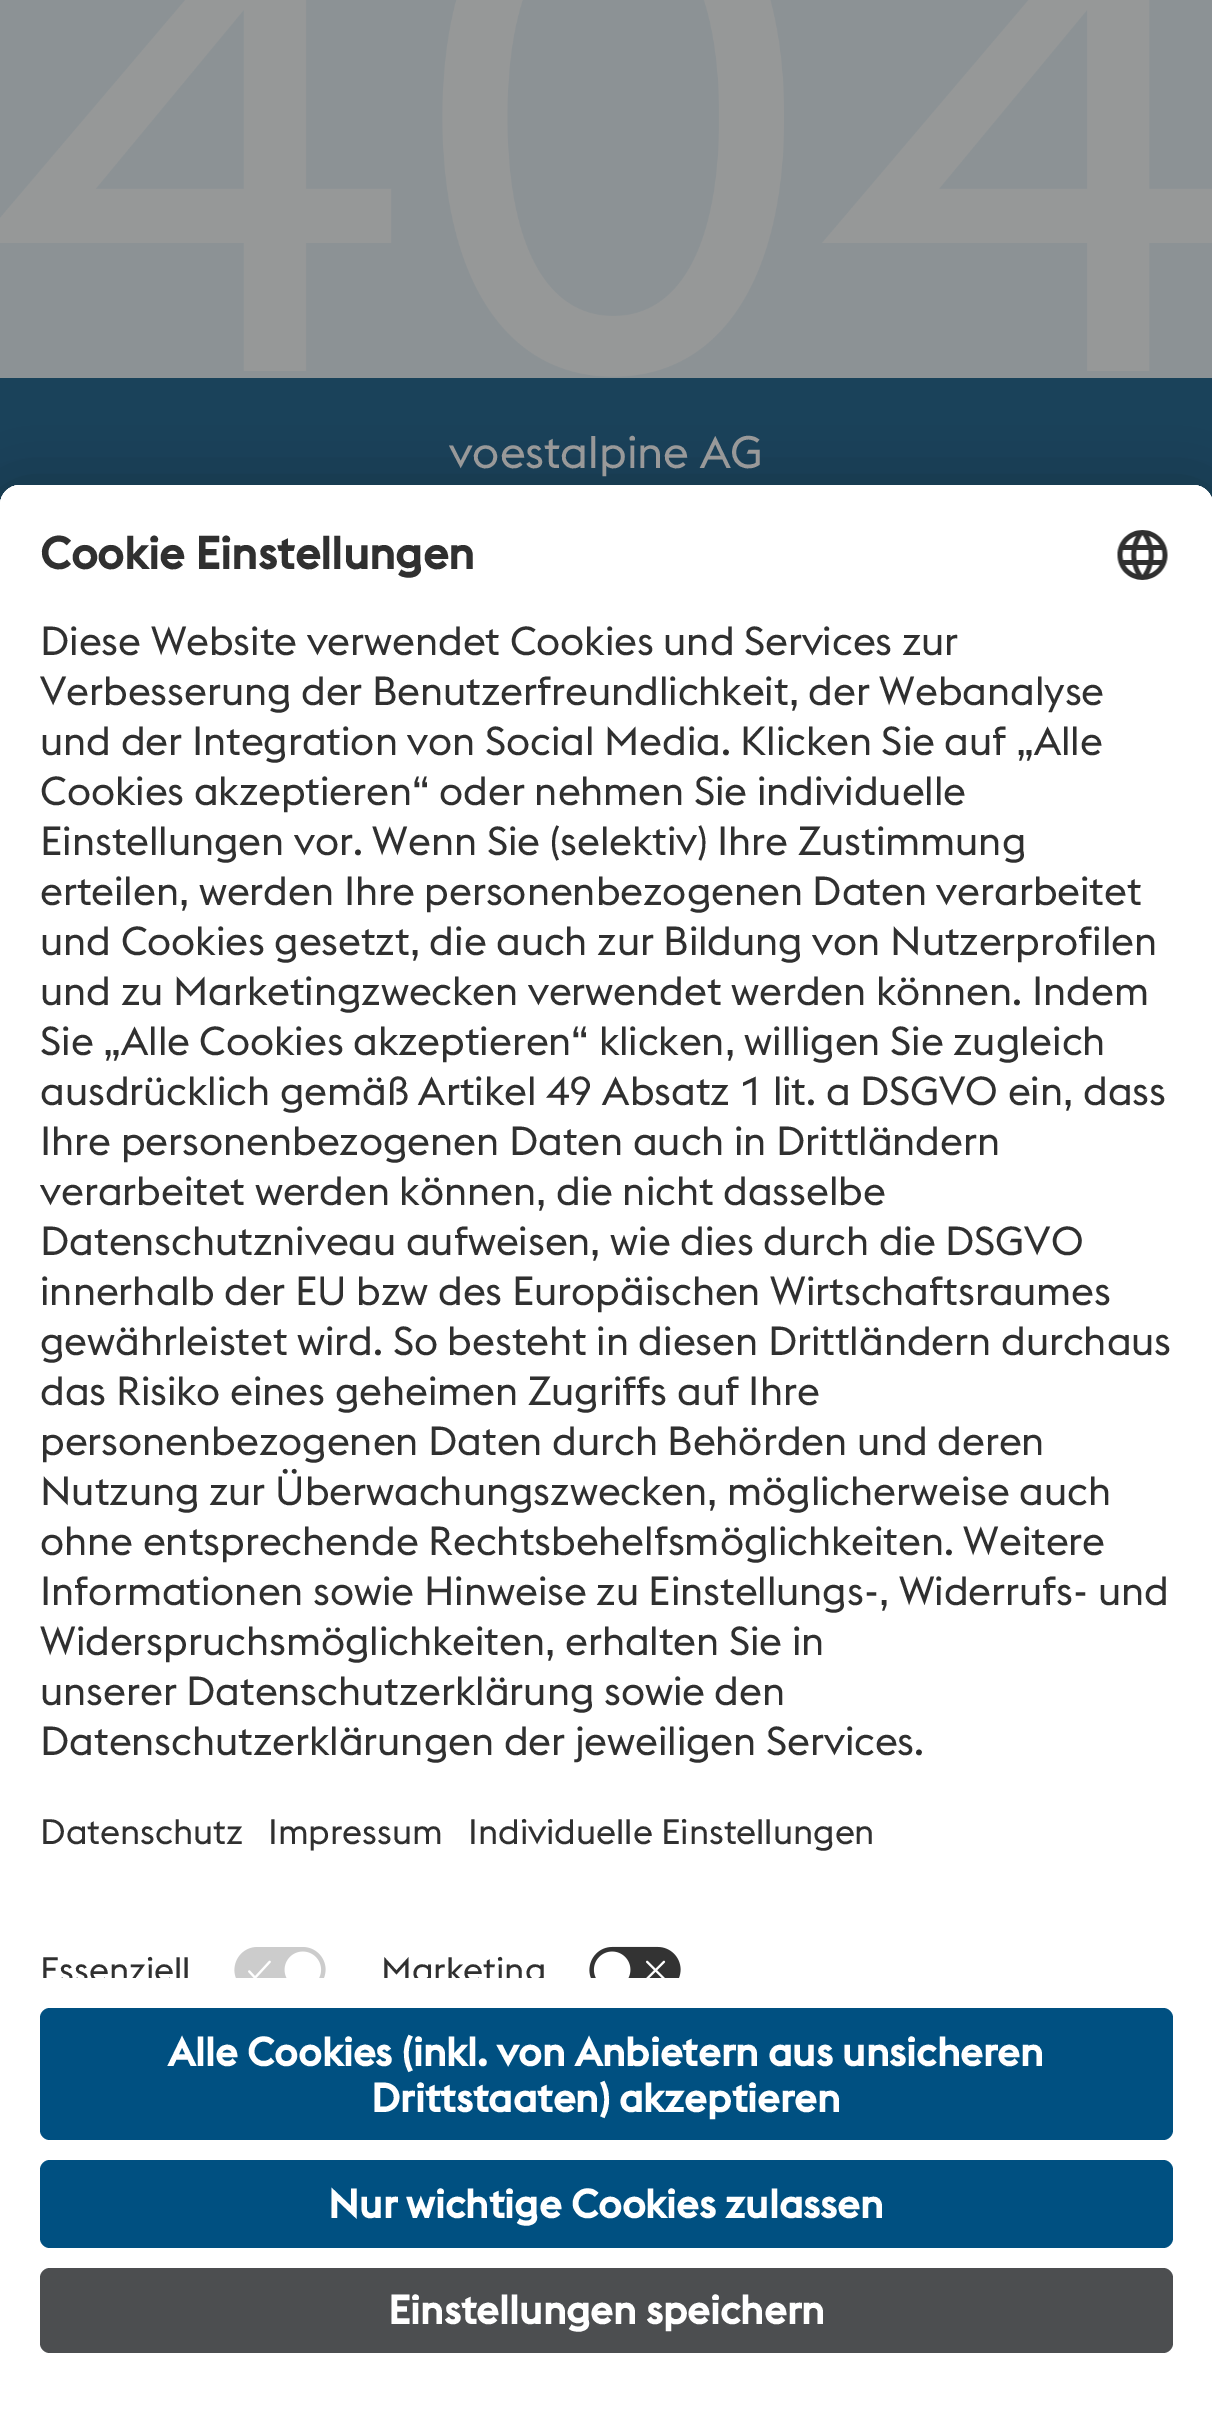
%!PS
<< /PageSize [1212 2421] /PageUsesTransparency true >> setpagedevice
/mt/moveto load def
/li/lineto load def
/ct/curveto load def
/cp/closepath load def
/fl/fill load def
/gs/gsave load def
/gr/grestore load def
/co { dup -16 bitshift 255 div exch dup -8 bitshift 255 and 255 div exch 255 and 255 div setrgbcolor } def
/fn { [ exch dup neg 0 0 3 -1 roll 0 0 ] selectfont } def
/tx { co fn moveto show } def
/bx { co rectfill } def
/al { dup .setfillconstantalpha .setstrokeconstantalpha } def
/rr { 5 dict begin { /r /h /w /y /x } { exch def } forall
  x r add y moveto x w add y 2 copy h add r arct x w add y h add x 1 index r arct
  x y h add x y r arct x y 2 copy exch w add exch r arct closepath end } def
/sh { 12 dict begin { /a /b /q /h /w /y /x } { exch def } forall gsave /was 0 def
  9 -2 -9 { dup b mul 4 div /e exch def 1 sub .425 mul 2.718 exch exp 1 add a .99 .min exch div /now exch def
    1 1 now sub 1 was sub div sub al /was now def
    w h .min e 2 mul add 0 gt { x e sub y e sub w e 2 mul add h e 2 mul add
      q e add b .6 mul add w h .min 2 div e add .min 0 .max rr fill } if } for grestore end } def
/im { 5 dict begin { /h /w /y /x /name } { exch def } forall
  gsave x y translate w h scale
  w h 8 [w 0 0 h 0 0] name (r) file false 3 colorimage grestore end } def
0 .pushpdf14devicefilter
0 2421 translate 1 -1 scale
4 setmiterlimit
0 0 1212 2421 16#1A425A bx
0 0 1212 378 16#8C9395 bx
(media/1.raw) 0 0 1212 377 im
16#000000 co
0 535 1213 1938 20 35 .3 sh
0 498 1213 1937 20 32.5 .22 sh
16#FFFFFF co
20 485 mt 1193 485 li 1204 485 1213 494 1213 505 ct 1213 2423 li 0 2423 li 0 505 li 0 494 9 485 20 485 ct cp fl
20 485 mt 1193 485 li 1204 485 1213 494 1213 505 ct 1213 1978 li 0 1978 li 0 505 li 0 494 9 485 20 485 ct cp fl
20 485 mt 1193 485 li 1204 485 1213 494 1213 505 ct 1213 1930 li 0 1930 li 0 505 li 0 494 9 485 20 485 ct cp fl
(media/2.raw) 1117 530 51 50 im
(media/3.raw) 234 1947 92 31 im
(media/4.raw) 589 1946 92 32 im
16#005081 co
40 2008 1133 132 10 rr fl
40 2160 1133 88 10 rr fl
16#4C4E50 co
40 2268 1133 85 10 rr fl
(voestalpine AG) 449 468 /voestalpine-Regular 45 16#999999 tx
(Cookie Einstellungen) 40 569 /voestalpine-Bold 45 16#303030 tx
(Diese Website verwendet Cookies und Services zur) 40 655 /voestalpine-Regular 40 16#303030 tx
(Verbesserung der Benutzerfreundlichkeit, der Webanalyse) 40 705 /voestalpine-Regular 40 16#303030 tx
(und der Integration von Social Media. Klicken Sie auf „Alle) 40 755 /voestalpine-Regular 40 16#303030 tx
(Cookies akzeptieren“ oder nehmen Sie individuelle) 40 805 /voestalpine-Regular 40 16#303030 tx
(Einstellungen vor. Wenn Sie \(selektiv\) Ihre Zustimmung) 40 855 /voestalpine-Regular 40 16#303030 tx
(erteilen, werden Ihre personenbezogenen Daten verarbeitet) 40 905 /voestalpine-Regular 40 16#303030 tx
(und Cookies gesetzt, die auch zur Bildung von Nutzerprofilen) 40 955 /voestalpine-Regular 40 16#303030 tx
(und zu Marketingzwecken verwendet werden können. Indem) 40 1005 /voestalpine-Regular 40 16#303030 tx
(Sie „Alle Cookies akzeptieren“ klicken, willigen Sie zugleich) 40 1055 /voestalpine-Regular 40 16#303030 tx
(ausdrücklich gemäß Artikel 49 Absatz 1 lit. a DSGVO ein, dass) 40 1105 /voestalpine-Regular 40 16#303030 tx
(Ihre personenbezogenen Daten auch in Drittländern) 40 1155 /voestalpine-Regular 40 16#303030 tx
(verarbeitet werden können, die nicht dasselbe) 40 1205 /voestalpine-Regular 40 16#303030 tx
(Datenschutzniveau aufweisen, wie dies durch die DSGVO) 40 1255 /voestalpine-Regular 40 16#303030 tx
(innerhalb der EU bzw des Europäischen Wirtschaftsraumes) 40 1305 /voestalpine-Regular 40 16#303030 tx
(gewährleistet wird. So besteht in diesen Drittländern durchaus) 40 1355 /voestalpine-Regular 40 16#303030 tx
(das Risiko eines geheimen Zugriffs auf Ihre) 40 1405 /voestalpine-Regular 40 16#303030 tx
(personenbezogenen Daten durch Behörden und deren) 40 1455 /voestalpine-Regular 40 16#303030 tx
(Nutzung zur Überwachungszwecken, möglicherweise auch) 40 1505 /voestalpine-Regular 40 16#303030 tx
(ohne entsprechende Rechtsbehelfsmöglichkeiten. Weitere) 40 1555 /voestalpine-Regular 40 16#303030 tx
(Informationen sowie Hinweise zu Einstellungs-, Widerrufs- und) 40 1605 /voestalpine-Regular 40 16#303030 tx
(Widerspruchsmöglichkeiten, erhalten Sie in) 40 1655 /voestalpine-Regular 40 16#303030 tx
(unserer Datenschutzerklärung sowie den) 40 1705 /voestalpine-Regular 40 16#303030 tx
(Datenschutzerklärungen der jeweiligen Services.) 40 1755 /voestalpine-Regular 40 16#303030 tx
(Datenschutz) 40 1844 /voestalpine-Regular 35 16#303030 tx
(Impressum) 268 1844 /voestalpine-Regular 35 16#303030 tx
(Individuelle Einstellungen) 468 1844 /voestalpine-Regular 35 16#303030 tx
gs
20 485 mt 1193 485 li 1204 485 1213 494 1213 505 ct 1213 1978 li 0 1978 li 0 505 li 0 494 9 485 20 485 ct cp clip newpath
(Essenziell) 40 1982 /voestalpine-Regular 35 16#303030 tx
(Marketing) 381 1982 /voestalpine-Regular 35 16#303030 tx
gr
(Alle Cookies \(inkl. von Anbietern aus unsicheren) 168 2066 /voestalpine-Bold 40 16#FFFFFF tx
(Drittstaaten\) akzeptieren) 371 2112 /voestalpine-Bold 40 16#FFFFFF tx
(Nur wichtige Cookies zulassen) 328 2218 /voestalpine-Bold 40 16#FFFFFF tx
(Einstellungen speichern) 388 2324 /voestalpine-Bold 40 16#FFFFFF tx
.poppdf14devicefilter showpage
